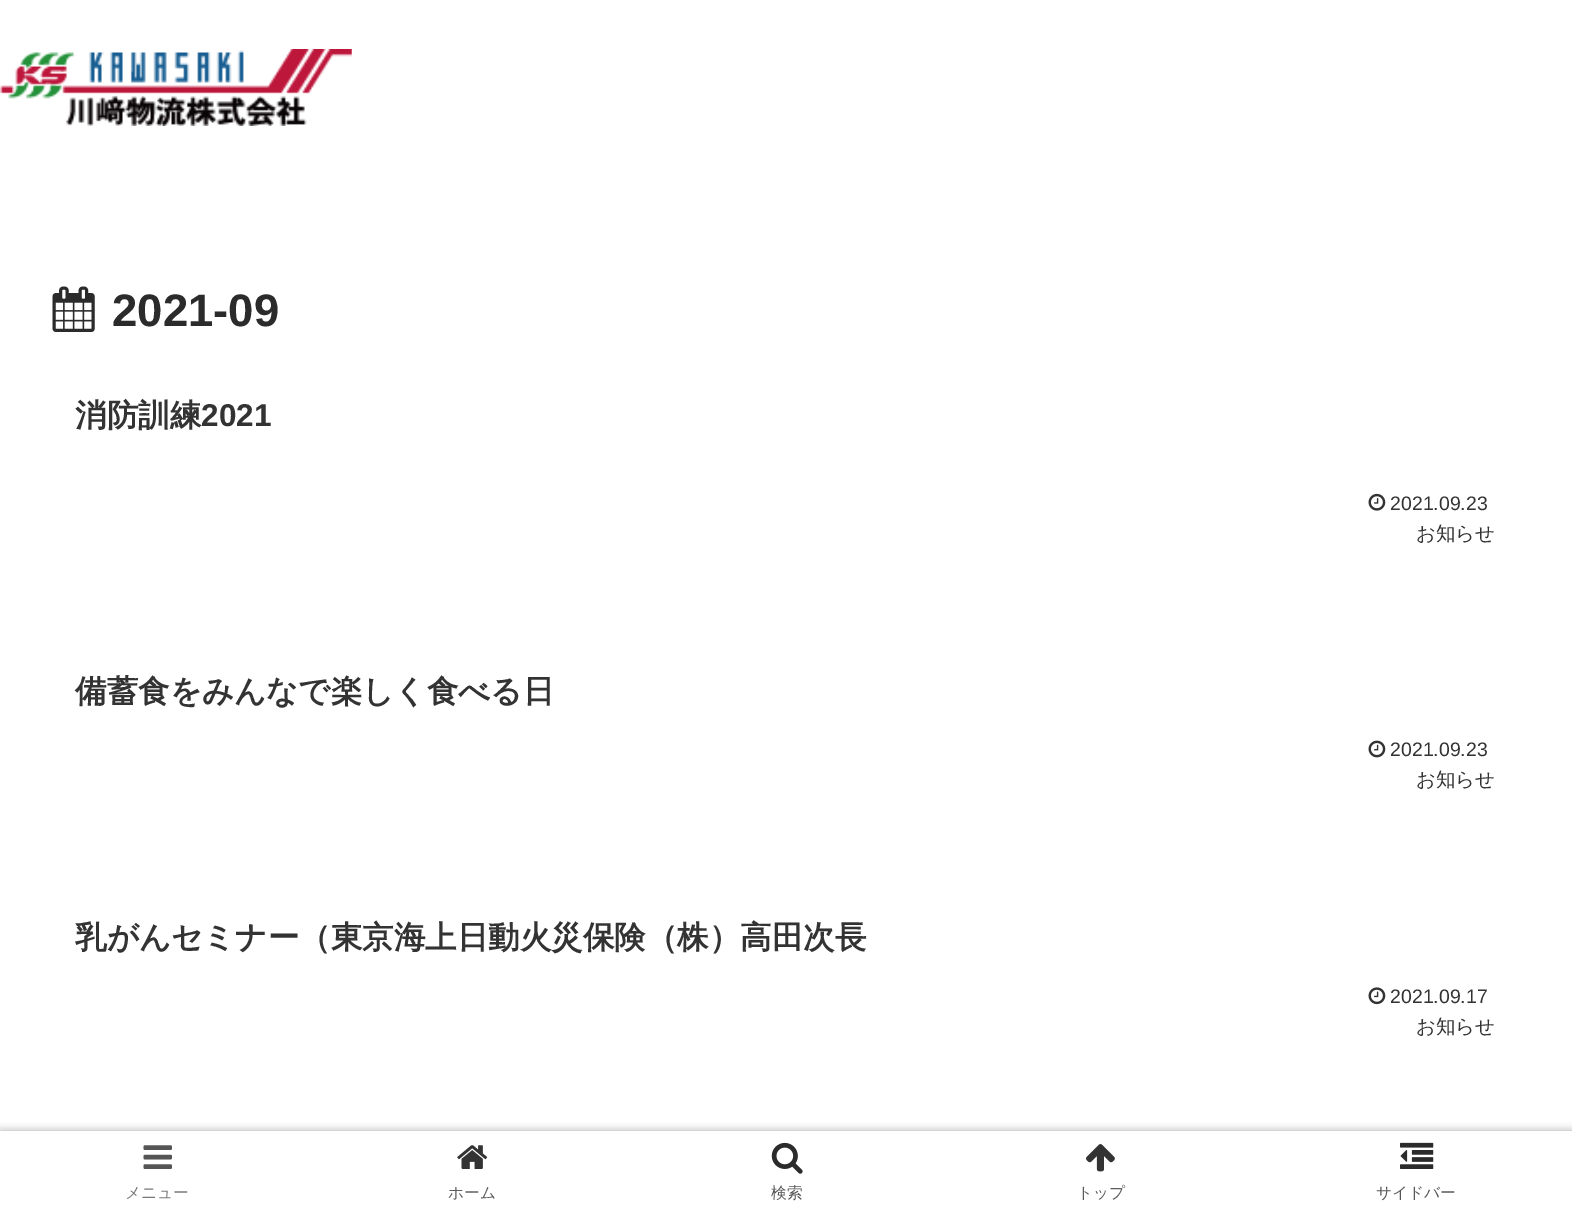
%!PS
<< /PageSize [1572 1218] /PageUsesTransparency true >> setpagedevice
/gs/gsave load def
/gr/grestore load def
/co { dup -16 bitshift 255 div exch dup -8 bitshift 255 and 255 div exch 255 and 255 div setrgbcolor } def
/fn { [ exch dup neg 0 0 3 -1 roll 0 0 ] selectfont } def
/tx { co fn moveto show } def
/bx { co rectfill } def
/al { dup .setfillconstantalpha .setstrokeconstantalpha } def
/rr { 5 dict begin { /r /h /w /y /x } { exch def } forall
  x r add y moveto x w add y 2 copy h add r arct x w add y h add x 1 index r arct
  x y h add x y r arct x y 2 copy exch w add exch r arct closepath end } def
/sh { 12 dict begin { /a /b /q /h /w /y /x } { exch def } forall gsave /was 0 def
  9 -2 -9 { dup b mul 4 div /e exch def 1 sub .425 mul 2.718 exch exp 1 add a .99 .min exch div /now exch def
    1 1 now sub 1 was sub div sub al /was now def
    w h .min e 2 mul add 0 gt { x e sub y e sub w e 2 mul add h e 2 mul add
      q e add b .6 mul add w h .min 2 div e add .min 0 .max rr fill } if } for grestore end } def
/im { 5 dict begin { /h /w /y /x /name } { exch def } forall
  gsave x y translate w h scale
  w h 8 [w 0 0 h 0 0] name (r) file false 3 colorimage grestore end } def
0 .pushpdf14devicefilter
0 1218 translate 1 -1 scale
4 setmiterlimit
0 0 1572 1218 16#FFFFFF bx
(media/1.raw) 0 49 352 77 im
(media/2.raw) 52 286 43 46 im
(media/3.raw) 1368 493 18 18 im
(media/4.raw) 1368 740 18 18 im
(media/5.raw) 1368 987 18 18 im
gs
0 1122 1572 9 rectclip
16#A9A9A9 co
0 1131 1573 87 0 4.5 1 sh
gr
(media/6.raw) 143 1145 29 24 im
(media/7.raw) 457 1145 31 24 im
(media/8.raw) 771 1142 32 32 im
(media/9.raw) 1086 1144 29 28 im
(media/10.raw) 1400 1142 34 27 im
(2021-09) 112 326 /LiberationSans-Bold 45.5 16#2B2B2B tx
(消防訓練) 75 426 /WenQuanYiZenHei-Bold 31.5 16#333333 tx
(2021) 201 426 /LiberationSans-Bold 31.5 16#333333 tx
(2021.09.23) 1390 510 /LiberationSans-Regular 19.5 16#333333 tx
(お知らせ) 1416 540 /WenQuanYiZenHei-Medium 19.5 16#333333 tx
(備蓄食をみんなで楽しく食べる日) 75 702 /WenQuanYiZenHei-Bold 31.5 16#333333 tx
(2021.09.23) 1390 756 /LiberationSans-Regular 19.5 16#333333 tx
(お知らせ) 1416 786 /WenQuanYiZenHei-Medium 19.5 16#333333 tx
(乳がんセミナー（東京海上日動火災保険（株）高田次長) 75 948 /WenQuanYiZenHei-Bold 31.5 16#333333 tx
(2021.09.17) 1390 1003 /LiberationSans-Regular 19.5 16#333333 tx
(お知らせ) 1416 1033 /WenQuanYiZenHei-Medium 19.5 16#333333 tx
(メニュー) 125 1198 /WenQuanYiZenHei-Medium 15.75 16#777777 tx
(ホーム) 448 1198 /WenQuanYiZenHei-Medium 15.75 16#5C5C5C tx
(検索) 771 1198 /WenQuanYiZenHei-Medium 15.75 16#555555 tx
(トップ) 1077 1198 /WenQuanYiZenHei-Medium 15.75 16#5C5C5C tx
(サイドバー) 1376 1198 /WenQuanYiZenHei-Medium 15.75 16#555555 tx
.poppdf14devicefilter showpage
